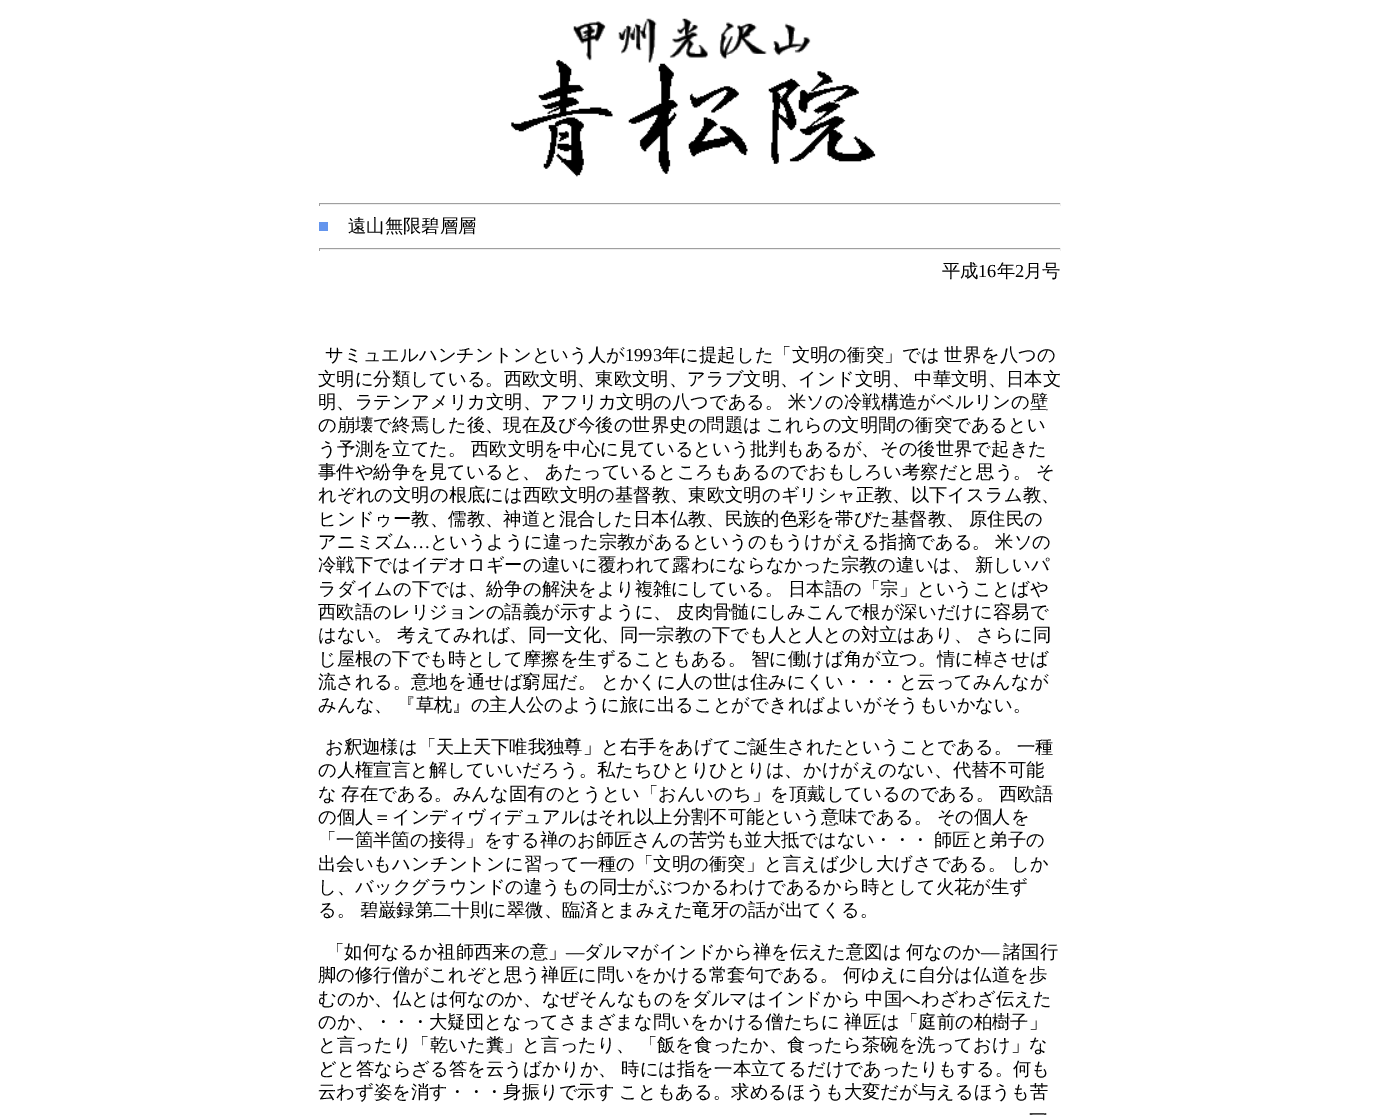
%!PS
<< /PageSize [1378 1118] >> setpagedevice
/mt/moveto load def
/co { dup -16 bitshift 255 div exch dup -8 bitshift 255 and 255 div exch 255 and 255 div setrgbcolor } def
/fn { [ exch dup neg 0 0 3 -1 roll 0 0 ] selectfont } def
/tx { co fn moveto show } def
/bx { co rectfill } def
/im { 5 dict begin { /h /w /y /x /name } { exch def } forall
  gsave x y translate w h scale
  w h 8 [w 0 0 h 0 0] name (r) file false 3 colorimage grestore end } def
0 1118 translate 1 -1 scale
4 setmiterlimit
0 0 1378 1118 16#FFFFFF bx
(media/1.raw) 511 18 365 159 im
319 203 742 1 16#9F9F9F bx
1060 203 1 3 16#EEEEEE bx
319 204 742 1 16#EEEEEE bx
319 203 1 3 16#9F9F9F bx
319 248 742 1 16#9F9F9F bx
1060 248 1 3 16#EEEEEE bx
319 249 742 1 16#EEEEEE bx
319 248 1 3 16#9F9F9F bx
(■) 318 232 /LiberationSerif-Regular 18.35 16#6495ED tx
(遠山無限碧層層) 348 232 /WenQuanYiZenHei-Medium 18.35 16#000000 tx
(平成) 942 277 /WenQuanYiZenHei-Medium 18.35 16#000000 tx
(16) 978 277 /LiberationSerif-Regular 18.35 16#000000 tx
(年) 997 277 /WenQuanYiZenHei-Medium 18.35 16#000000 tx
(2) 1015 277 /LiberationSerif-Regular 18.35 16#000000 tx
(月号) 1024 277 /WenQuanYiZenHei-Medium 18.35 16#000000 tx
(サミュエルハンチントンという人が) 325 361 /WenQuanYiZenHei-Medium 18.35 16#000000 tx
(1993) 625 361 /LiberationSerif-Regular 18.35 16#000000 tx
/WenQuanYiZenHei-Medium 18.35 fn
662 361 mt -1 0 32 (年に提起した「文明の衝突」では 世界を八つの) widthshow
318 385 mt -1 0 32 (文明に分類している。西欧文明、東欧文明、アラブ文明、インド文明、 中華文明、日本文) widthshow
318 408 mt -1 0 32 (明、ラテンアメリカ文明、アフリカ文明の八つである。 米ソの冷戦構造がベルリンの壁) widthshow
318 431 mt -1 0 32 (の崩壊で終焉した後、現在及び今後の世界史の問題は これらの文明間の衝突であるとい) widthshow
318 455 mt -1 0 32 (う予測を立てた。 西欧文明を中心に見ているという批判もあるが、その後世界で起きた) widthshow
318 478 mt -1 0 32 (事件や紛争を見ていると、 あたっているところもあるのでおもしろい考察だと思う。 そ) widthshow
(れぞれの文明の根底には西欧文明の基督教、東欧文明のギリシャ正教、以下イスラム教、) 318 501 /WenQuanYiZenHei-Medium 18.35 16#000000 tx
318 525 mt -1 0 32 (ヒンドゥー教、儒教、神道と混合した日本仏教、民族的色彩を帯びた基督教、 原住民の) widthshow
(アニミズム) 318 548 /WenQuanYiZenHei-Medium 18.35 16#000000 tx
(…) 412 548 /LiberationSerif-Regular 18.35 16#000000 tx
/WenQuanYiZenHei-Medium 18.35 fn
430 548 mt -1 0 32 (というように違った宗教があるというのもうけがえる指摘である。 米ソの) widthshow
318 571 mt -1 0 32 (冷戦下ではイデオロギーの違いに覆われて露わにならなかった宗教の違いは、 新しいパ) widthshow
318 595 mt -1 0 32 (ラダイムの下では、紛争の解決をより複雑にしている。 日本語の「宗」ということばや) widthshow
318 618 mt -1 0 32 (西欧語のレリジョンの語義が示すように、 皮肉骨髄にしみこんで根が深いだけに容易で) widthshow
318 641 mt -1 0 32 (はない。 考えてみれば、同一文化、同一宗教の下でも人と人との対立はあり、 さらに同) widthshow
318 665 mt -1 0 32 (じ屋根の下でも時として摩擦を生ずることもある。 智に働けば角が立つ。情に棹させば) widthshow
318 688 mt -1 0 32 (流される。意地を通せば窮屈だ。 とかくに人の世は住みにくい・・・と云ってみんなが) widthshow
318 711 mt -1 0 32 (みんな、 『草枕』の主人公のように旅に出ることができればよいがそうもいかない。) widthshow
325 753 mt -1 0 32 (お釈迦様は「天上天下唯我独尊」と右手をあげてご誕生されたということである。 一種) widthshow
(の人権宣言と解していいだろう。私たちひとりひとりは、かけがえのない、代替不可能) 318 776 /WenQuanYiZenHei-Medium 18.35 16#000000 tx
318 800 mt -1 0 32 (な 存在である。みんな固有のとうとい「おんいのち」を頂戴しているのである。 西欧語) widthshow
318 823 mt -1 0 32 (の個人＝インディヴィデュアルはそれ以上分割不可能という意味である。 その個人を) widthshow
318 846 mt -1 0 32 (「一箇半箇の接得」をする禅のお師匠さんの苦労も並大抵ではない・・・ 師匠と弟子の) widthshow
318 870 mt -1 0 32 (出会いもハンチントンに習って一種の「文明の衝突」と言えば少し大げさである。 しか) widthshow
(し、バックグラウンドの違うもの同士がぶつかるわけであるから時として火花が生ず) 318 893 /WenQuanYiZenHei-Medium 18.35 16#000000 tx
318 916 mt -1 0 32 (る。 碧巌録第二十則に翠微、臨済とまみえた竜牙の話が出てくる。) widthshow
(「如何なるか祖師西来の意」) 326 958 /WenQuanYiZenHei-Medium 18.35 16#000000 tx
(―) 566 958 /LiberationSerif-Regular 18.35 16#000000 tx
/WenQuanYiZenHei-Medium 18.35 fn
584 958 mt -1 0 32 (ダルマがインドから禅を伝えた意図は 何なのか) widthshow
(―) 981 958 /LiberationSerif-Regular 18.35 16#000000 tx
(諸国行) 1003 958 /WenQuanYiZenHei-Medium 18.35 16#000000 tx
318 981 mt -1 0 32 (脚の修行僧がこれぞと思う禅匠に問いをかける常套句である。 何ゆえに自分は仏道を歩) widthshow
318 1005 mt -1 0 32 (むのか、仏とは何なのか、なぜそんなものをダルマはインドから 中国へわざわざ伝えた) widthshow
318 1028 mt -1 0 32 (のか、・・・大疑団となってさまざまな問いをかける僧たちに 禅匠は「庭前の柏樹子」) widthshow
318 1051 mt -1 0 32 (と言ったり「乾いた糞」と言ったり、 「飯を食ったか、食ったら茶碗を洗っておけ」な) widthshow
318 1075 mt -1 0 32 (どと答ならざる答を云うばかりか、 時には指を一本立てるだけであったりもする。何も) widthshow
318 1098 mt -1 0 32 (云わず姿を消す・・・身振りで示す こともある。求めるほうも大変だが与えるほうも苦) widthshow
1029 1121 mt -1 0 32 (一) widthshow
showpage
